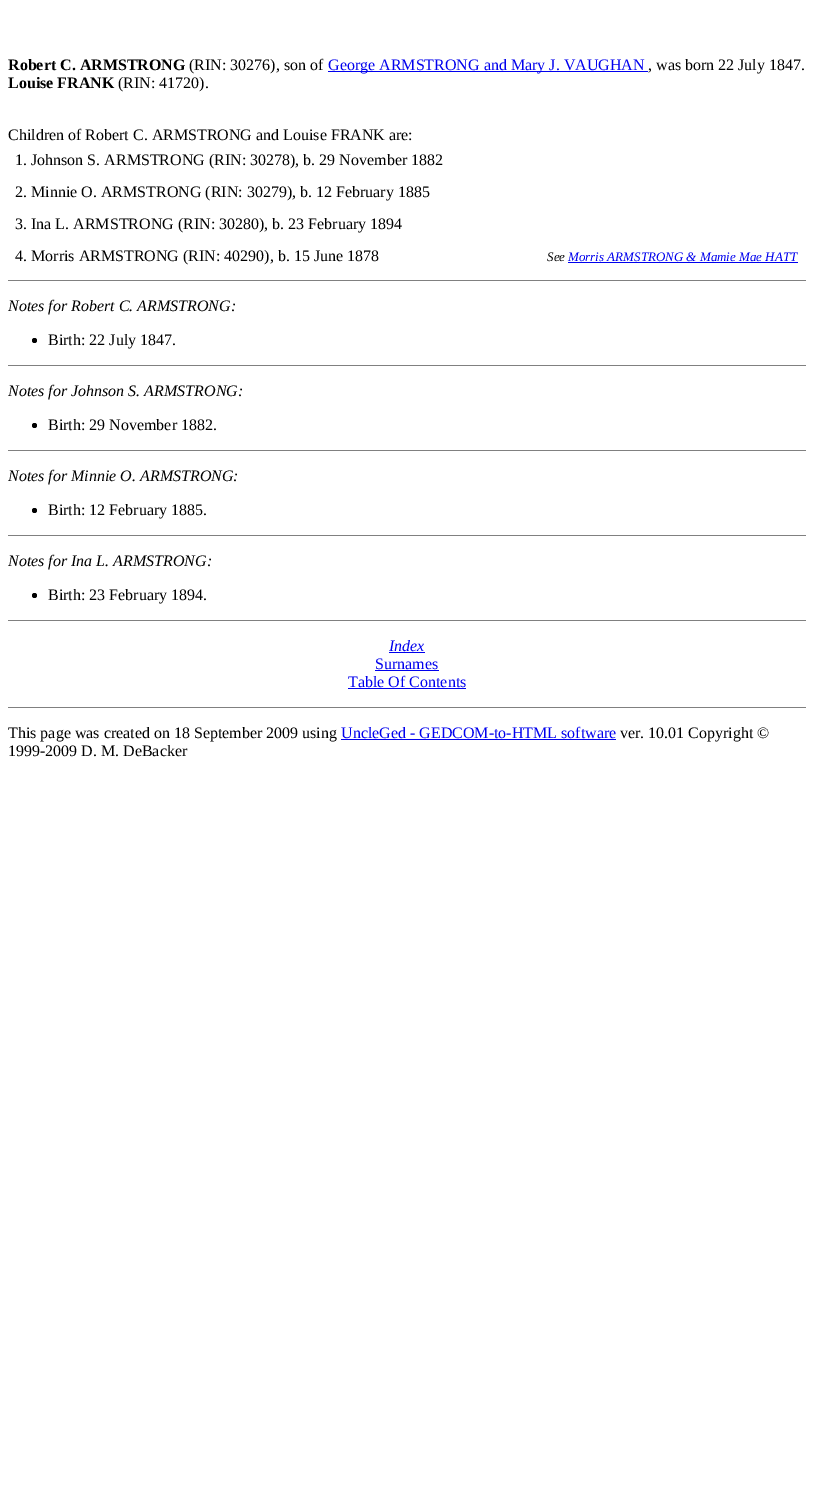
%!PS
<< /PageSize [814 1486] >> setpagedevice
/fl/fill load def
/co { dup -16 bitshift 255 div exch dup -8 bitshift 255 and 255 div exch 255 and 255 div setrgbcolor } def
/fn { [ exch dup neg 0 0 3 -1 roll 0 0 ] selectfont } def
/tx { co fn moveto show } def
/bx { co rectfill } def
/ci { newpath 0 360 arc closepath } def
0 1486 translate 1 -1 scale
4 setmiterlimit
0 0 814 1486 16#FFFFFF bx
328 71 320 1 16#0000EE bx
568 262 230 1 16#0000EE bx
8 280 798 1 16#808080 bx
16#000000 co
34.5 340.5 2.5 ci fl
8 365 798 1 16#808080 bx
16#000000 co
34.5 425.5 2.5 ci fl
8 450 798 1 16#808080 bx
16#000000 co
34.5 510.5 2.5 ci fl
8 535 798 1 16#808080 bx
16#000000 co
34.5 595.5 2.5 ci fl
8 620 798 1 16#808080 bx
389 652 36 1 16#0000EE bx
375 670 64 1 16#0000EE bx
348 688 118 1 16#0000EE bx
8 707 798 1 16#808080 bx
341 739 275 1 16#0000EE bx
(Robert C. ARMSTRONG) 8 70 /LiberationSerif-Bold 16 16#000000 tx
(\(RIN: 30276\), son of) 189 70 /LiberationSerif-Regular 16 16#000000 tx
(George ARMSTRONG and Mary J. VAUGHAN) 328 70 /LiberationSerif-Regular 16 16#0000EE tx
(, was born 22 July 1847.) 648 70 /LiberationSerif-Regular 16 16#000000 tx
(Louise FRANK) 8 88 /LiberationSerif-Bold 16 16#000000 tx
(\(RIN: 41720\).) 118 88 /LiberationSerif-Regular 16 16#000000 tx
(Children of Robert C. ARMSTRONG and Louise FRANK are:) 8 140 /LiberationSerif-Regular 16 16#000000 tx
(1. Johnson S. ARMSTRONG \(RIN: 30278\), b. 29 November 1882) 15 165 /LiberationSerif-Regular 16 16#000000 tx
(2. Minnie O. ARMSTRONG \(RIN: 30279\), b. 12 February 1885) 15 197 /LiberationSerif-Regular 16 16#000000 tx
(3. Ina L. ARMSTRONG \(RIN: 30280\), b. 23 February 1894) 15 229 /LiberationSerif-Regular 16 16#000000 tx
(4. Morris ARMSTRONG \(RIN: 40290\), b. 15 June 1878) 15 261 /LiberationSerif-Regular 16 16#000000 tx
(See) 547 261 /LiberationSerif-Italic 13 16#000000 tx
(Morris ARMSTRONG & Mamie Mae HATT) 568 261 /LiberationSerif-Italic 13 16#0000EE tx
(Notes for Robert C. ARMSTRONG:) 8 311 /LiberationSerif-Italic 16 16#000000 tx
(Birth: 22 July 1847.) 48 345 /LiberationSerif-Regular 16 16#000000 tx
(Notes for Johnson S. ARMSTRONG:) 8 396 /LiberationSerif-Italic 16 16#000000 tx
(Birth: 29 November 1882.) 48 430 /LiberationSerif-Regular 16 16#000000 tx
(Notes for Minnie O. ARMSTRONG:) 8 481 /LiberationSerif-Italic 16 16#000000 tx
(Birth: 12 February 1885.) 48 515 /LiberationSerif-Regular 16 16#000000 tx
(Notes for Ina L. ARMSTRONG:) 8 566 /LiberationSerif-Italic 16 16#000000 tx
(Birth: 23 February 1894.) 48 600 /LiberationSerif-Regular 16 16#000000 tx
(Index) 389 651 /LiberationSerif-Italic 16 16#0000EE tx
(Surnames) 375 669 /LiberationSerif-Regular 16 16#0000EE tx
(Table Of Contents) 348 687 /LiberationSerif-Regular 16 16#0000EE tx
(This page was created on 18 September 2009 using) 8 738 /LiberationSerif-Regular 16 16#000000 tx
(UncleGed - GEDCOM-to-HTML software) 341 738 /LiberationSerif-Regular 16 16#0000EE tx
(ver. 10.01 Copyright ©) 620 738 /LiberationSerif-Regular 16 16#000000 tx
(1999-2009 D. M. DeBacker) 8 756 /LiberationSerif-Regular 16 16#000000 tx
showpage
